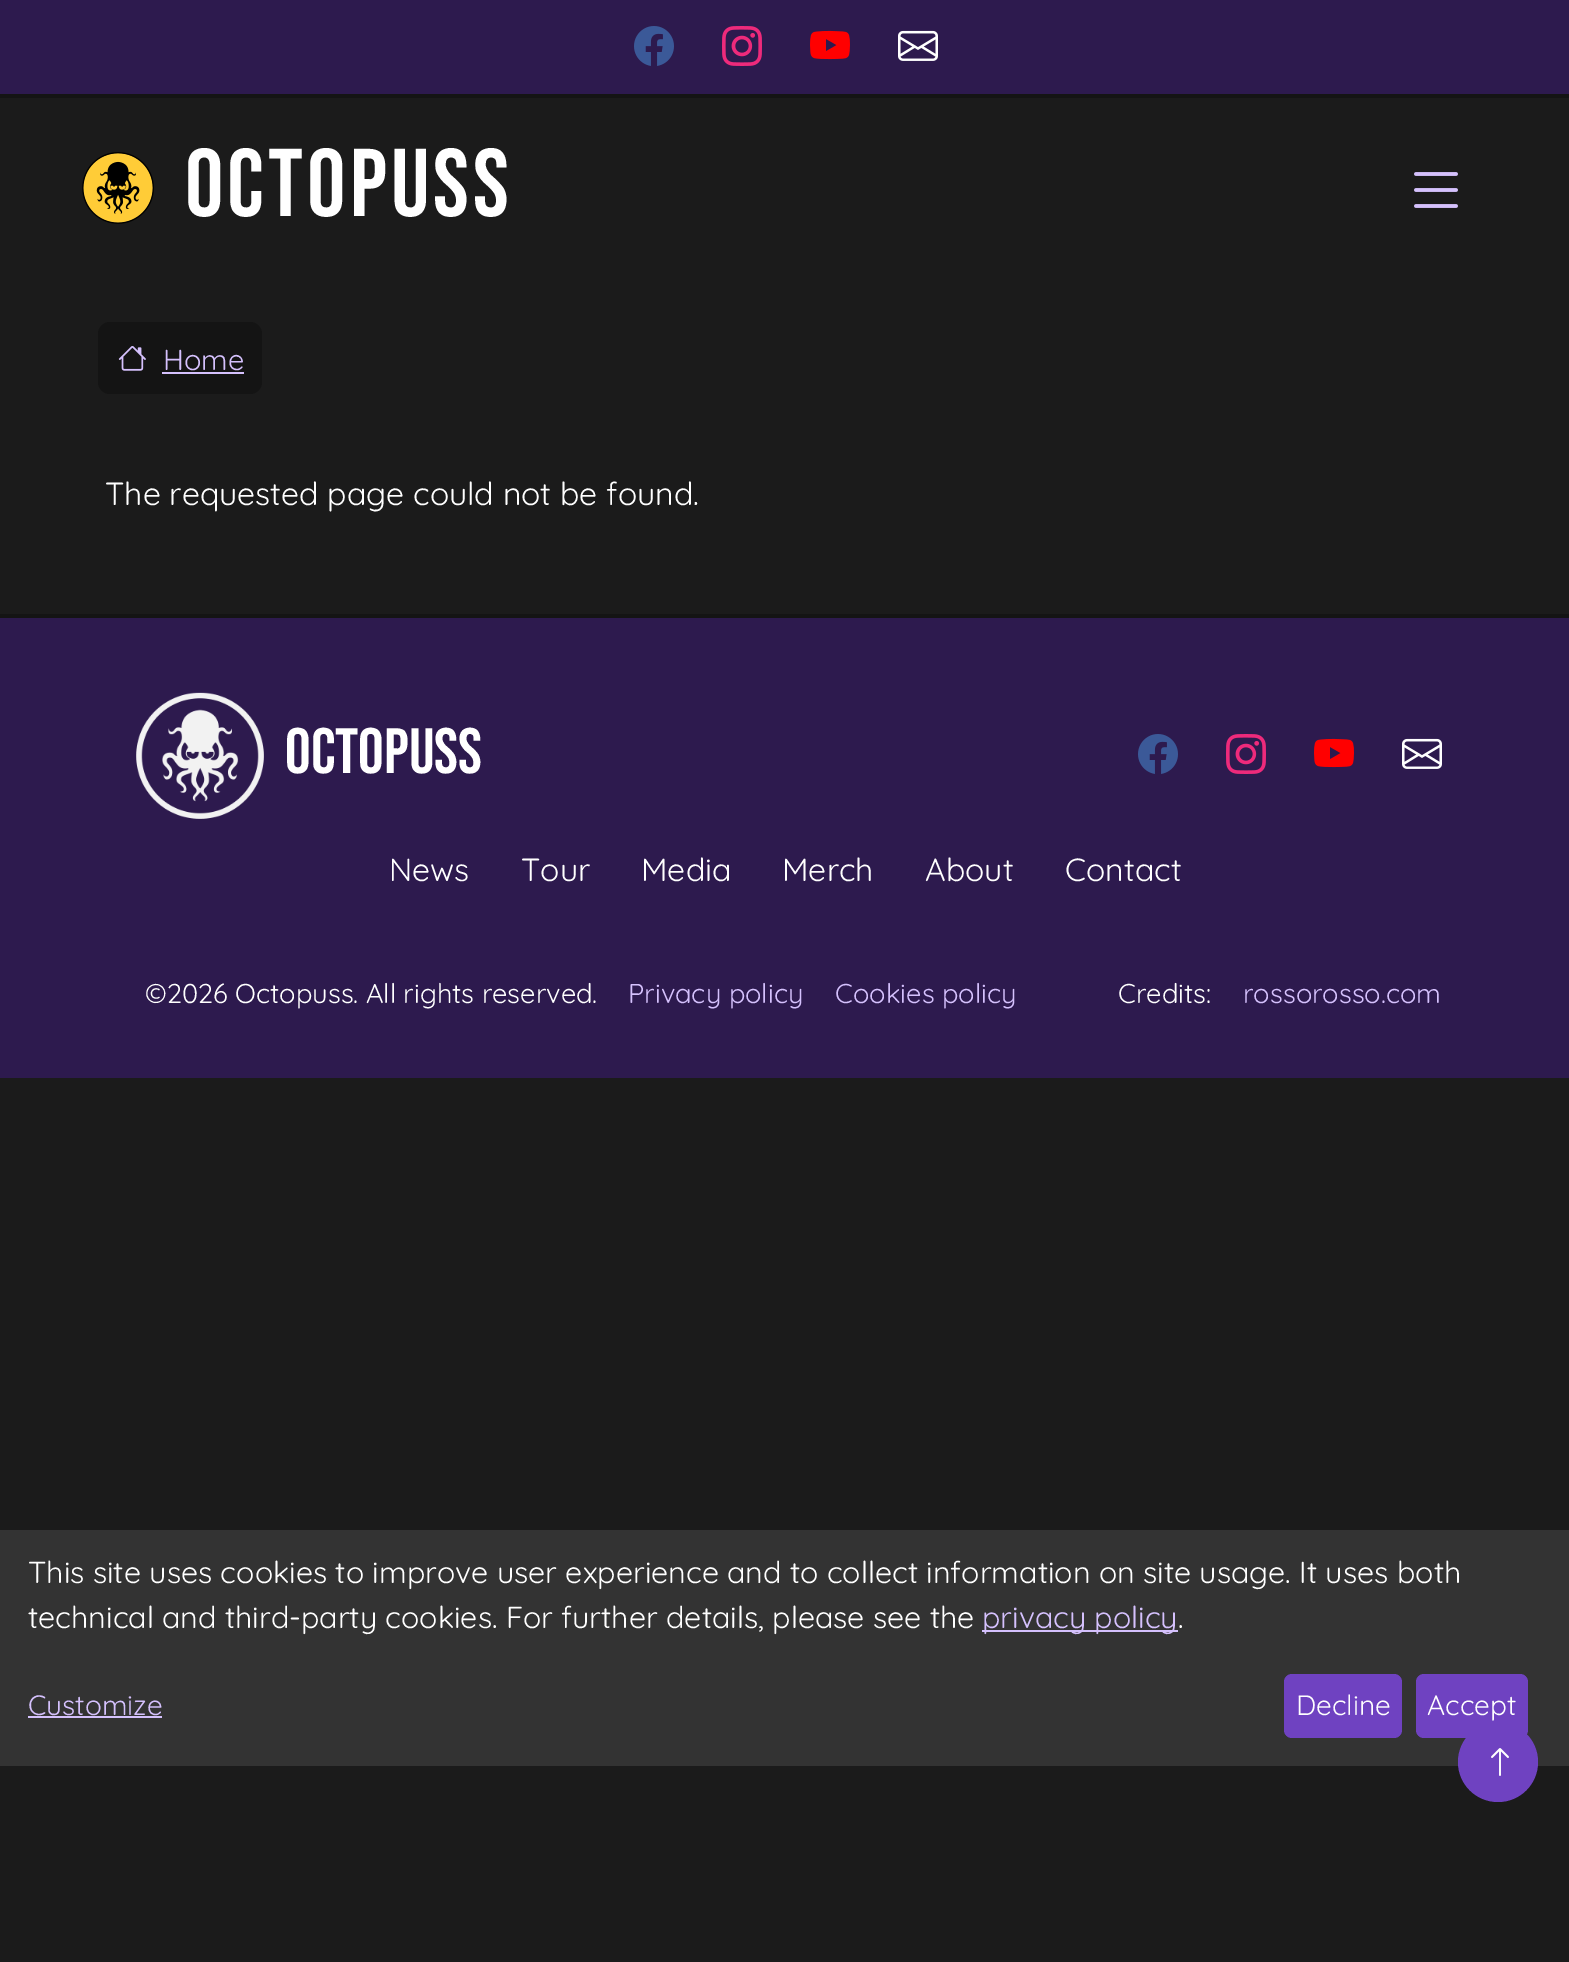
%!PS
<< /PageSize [1569 1962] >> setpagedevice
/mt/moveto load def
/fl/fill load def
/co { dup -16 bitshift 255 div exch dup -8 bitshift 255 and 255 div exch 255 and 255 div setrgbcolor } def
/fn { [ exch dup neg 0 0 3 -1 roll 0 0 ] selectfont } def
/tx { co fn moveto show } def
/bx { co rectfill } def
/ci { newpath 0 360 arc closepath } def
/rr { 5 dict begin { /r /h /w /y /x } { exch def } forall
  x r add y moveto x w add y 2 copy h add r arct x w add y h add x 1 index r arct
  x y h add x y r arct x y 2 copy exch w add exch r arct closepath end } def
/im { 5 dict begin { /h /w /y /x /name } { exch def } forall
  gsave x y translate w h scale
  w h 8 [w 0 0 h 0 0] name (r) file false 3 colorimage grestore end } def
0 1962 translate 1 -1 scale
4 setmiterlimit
0 0 1569 1962 16#1B1B1B bx
0 0 1569 94 16#2D1A4E bx
0 94 1569 4 16#141414 bx
(media/1.raw) 634 26 40 40 im
(media/2.raw) 722 26 40 40 im
(media/3.raw) 810 30 40 30 im
(media/4.raw) 898 30 40 31 im
(media/5.raw) 82 152 72 72 im
(media/6.raw) 1414 172 44 36 im
98 322 164 72 12 rr fl
(media/7.raw) 118 346 28 25 im
162 372 82 2 16#D5C1FD bx
0 618 1569 460 16#2D1A4E bx
0 614 1569 4 16#141414 bx
(media/8.raw) 136 692 128 127 im
(media/1.raw) 1138 734 40 40 im
(media/2.raw) 1226 734 40 40 im
(media/3.raw) 1314 738 40 30 im
(media/4.raw) 1402 738 40 31 im
0 1530 1569 236 16#333333 bx
16#6F42C1 co
1416 1674 112 64 8 rr fl
1498 1762 40 ci fl
(media/9.raw) 1491 1748 18 28 im
982 1630 196 2 16#D5C1FD bx
28 1716 134 2 16#D5C1FD bx
16#6F42C1 co
1284 1674 118 64 8 rr fl
/BebasNeue-Regular 96 fn
16#FFFFFF co
185 216 mt 4 0 (OCTOPUSS) ashow
(Home) 163 370 /Quicksand-Regular 29 16#D5C1FD tx
(The requested page could not be found.) 105 505 /Quicksand-Regular 32 16#FFFFFF tx
(Octopuss) 285 773 /BebasNeue-Regular 64 16#FFFFFF tx
(News) 389 881 /Quicksand-Regular 32 16#FFFFFF tx
(Tour) 521 881 /Quicksand-Regular 32 16#FFFFFF tx
(Media) 641 881 /Quicksand-Regular 32 16#FFFFFF tx
(Merch) 782 881 /Quicksand-Regular 32 16#FFFFFF tx
(About) 925 881 /Quicksand-Regular 32 16#FFFFFF tx
(Contact) 1065 881 /Quicksand-Regular 32 16#FFFFFF tx
(©2026 Octopuss. All rights reserved.) 145 1003 /Quicksand-Regular 27.25 16#FFFFFF tx
(Privacy policy) 628 1003 /Quicksand-Regular 27.25 16#D5C1FD tx
(Cookies policy) 835 1003 /Quicksand-Regular 27.25 16#D5C1FD tx
(Credits:) 1118 1003 /Quicksand-Regular 27.25 16#FFFFFF tx
(rossorosso.com) 1243 1003 /Quicksand-Regular 27.25 16#D5C1FD tx
(This site uses cookies to improve user experience and to collect information on site usage. It uses both) 28 1583 /Quicksand-Regular 30.4 16#FFFFFF tx
(technical and third-party cookies. For further details, please see the) 28 1628 /Quicksand-Regular 30.4 16#FFFFFF tx
(privacy policy) 982 1628 /Quicksand-Regular 30.4 16#D5C1FD tx
(.) 1178 1628 /Quicksand-Regular 30.4 16#FFFFFF tx
(Customize) 28 1715 /Quicksand-Regular 28 16#D5C1FD tx
(Decline) 1296 1715 /Quicksand-Regular 28 16#FFFFFF tx
(Accept) 1427 1715 /Quicksand-Regular 28 16#FFFFFF tx
showpage
